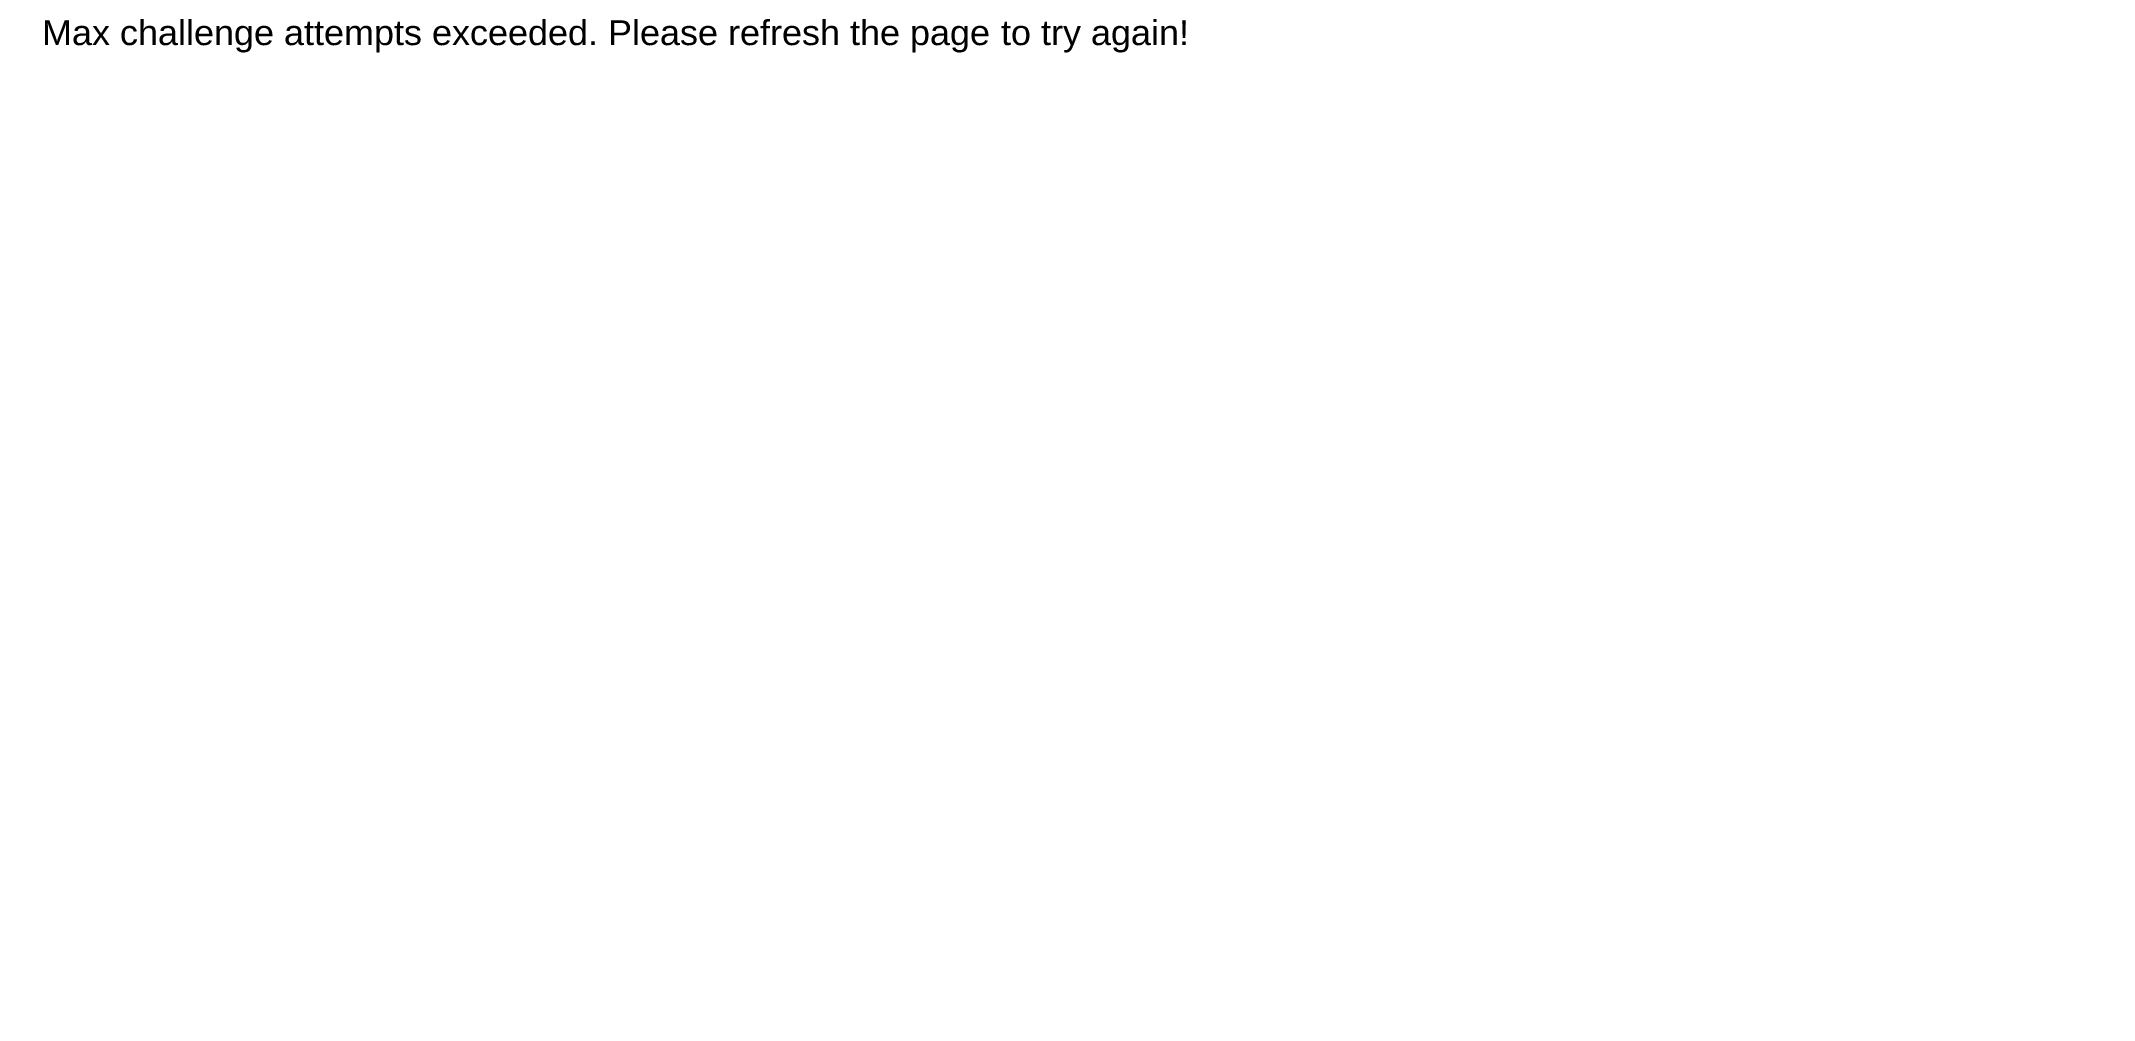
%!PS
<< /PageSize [2135 1041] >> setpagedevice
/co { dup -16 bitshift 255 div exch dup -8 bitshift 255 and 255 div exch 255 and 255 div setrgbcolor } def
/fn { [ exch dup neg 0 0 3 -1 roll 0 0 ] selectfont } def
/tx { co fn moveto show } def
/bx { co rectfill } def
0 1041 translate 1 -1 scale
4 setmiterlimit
0 0 2135 1041 16#FFFFFF bx
(Max challenge attempts exceeded. Please refresh the page to try again!) 42 45 /LiberationSans-Regular 36 16#000000 tx
showpage
